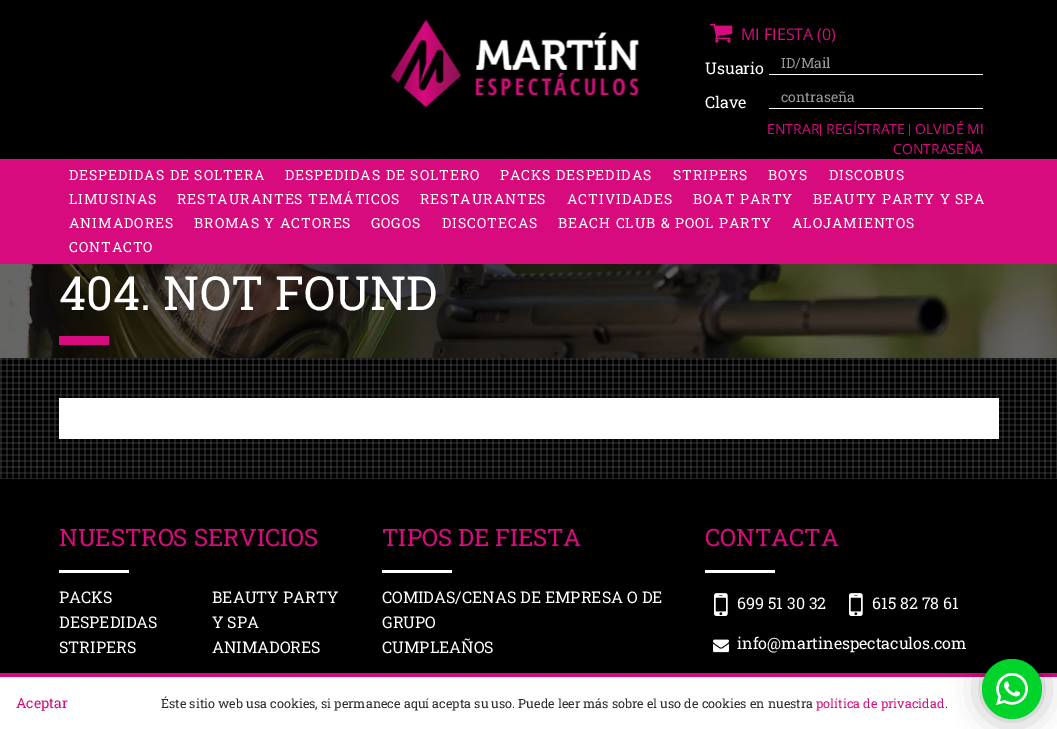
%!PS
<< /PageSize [1057 729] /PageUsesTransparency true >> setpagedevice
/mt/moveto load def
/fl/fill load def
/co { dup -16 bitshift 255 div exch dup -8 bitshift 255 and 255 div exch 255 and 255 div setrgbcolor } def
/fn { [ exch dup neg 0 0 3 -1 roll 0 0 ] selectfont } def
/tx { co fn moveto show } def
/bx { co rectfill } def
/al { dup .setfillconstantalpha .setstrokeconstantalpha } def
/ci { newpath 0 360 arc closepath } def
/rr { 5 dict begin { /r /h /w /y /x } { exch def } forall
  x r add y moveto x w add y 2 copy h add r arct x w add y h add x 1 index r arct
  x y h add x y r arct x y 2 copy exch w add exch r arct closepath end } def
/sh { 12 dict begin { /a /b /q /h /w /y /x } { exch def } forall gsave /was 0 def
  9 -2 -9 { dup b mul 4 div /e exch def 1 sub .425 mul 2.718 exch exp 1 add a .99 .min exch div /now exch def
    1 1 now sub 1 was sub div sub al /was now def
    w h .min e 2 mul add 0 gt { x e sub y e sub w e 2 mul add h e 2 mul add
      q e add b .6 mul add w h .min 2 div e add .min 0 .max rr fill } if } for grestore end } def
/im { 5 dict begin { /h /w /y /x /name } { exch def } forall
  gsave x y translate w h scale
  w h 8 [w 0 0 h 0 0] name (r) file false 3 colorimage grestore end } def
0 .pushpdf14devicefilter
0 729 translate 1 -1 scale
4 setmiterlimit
0 0 1057 729 16#000000 bx
(media/1.raw) 390 20 249 87 im
(media/2.raw) 710 23 23 20 im
769 74 214 1 16#FFFFFF bx
769 108 214 1 16#FFFFFF bx
0 159 1057 105 16#D70B7D bx
(media/3.raw) 0 264 1057 94 im
59 336 50 9 16#D70B7D bx
(media/4.raw) 0 358 1057 121 im
59 398 940 41 16#FFFFFF bx
59 570 70 3 16#FFFFFF bx
382 570 70 3 16#FFFFFF bx
705 570 70 3 16#FFFFFF bx
(media/5.raw) 714 593 14 23 im
(media/5.raw) 849 593 14 23 im
(media/6.raw) 713 639 16 14 im
0 677 1057 52 16#FFFFFF bx
0 673 1057 4 16#D70B7D bx
16#000000 co
982 659 60 60 30 15 .3 sh
16#00D32A co
1012 689 30 ci fl
(media/7.raw) 996 673 32 32 im
(MI FIESTA \(0\)) 741 40 /OpenSans-Regular 16 16#D70B7D tx
(Usuario) 705 74 /RobotoSlab-Regular 16 16#FFFFFF tx
(ID/Mail) 781 68 /RobotoSlab-Regular 14 16#999999 tx
(Clave) 705 108 /RobotoSlab-Regular 16 16#FFFFFF tx
(contraseña) 781 102 /RobotoSlab-Regular 14 16#999999 tx
(ENTRAR) 767 134 /OpenSans-Regular 14 16#D70B7D tx
(|) 819 134 /RobotoSlab-Regular 14 16#D70B7D tx
(REGÍSTRATE) 826 134 /OpenSans-Regular 14 16#D70B7D tx
(|) 908 134 /RobotoSlab-Regular 14 16#D70B7D tx
(OLVIDÉ MI) 915 134 /OpenSans-Regular 14 16#D70B7D tx
(CONTRASEÑA) 893 154 /OpenSans-Regular 14 16#D70B7D tx
/RobotoSlab-Regular 14 fn
16#FFFFFF co
69 180 mt 1 0 (DESPEDIDAS DE SOLTERA) ashow
285 180 mt 1 0 (DESPEDIDAS DE SOLTERO) ashow
500 180 mt 1 0 (PACKS DESPEDIDAS) ashow
673 180 mt 1 0 (STRIPERS) ashow
768 180 mt 1 0 (BOYS) ashow
829 180 mt 1 0 (DISCOBUS) ashow
69 204 mt 1 0 (LIMUSINAS) ashow
177 204 mt 1 0 (RESTAURANTES TEMÁTICOS) ashow
420 204 mt 1 0 (RESTAURANTES) ashow
567 204 mt 1 0 (ACTIVIDADES) ashow
693 204 mt 1 0 (BOAT PARTY) ashow
813 204 mt 1 0 (BEAUTY PARTY Y SPA) ashow
69 228 mt 1 0 (ANIMADORES) ashow
194 228 mt 1 0 (BROMAS Y ACTORES) ashow
371 228 mt 1 0 (GOGOS) ashow
442 228 mt 1 0 (DISCOTECAS) ashow
558 228 mt 1 0 (BEACH CLUB & POOL PARTY) ashow
792 228 mt 1 0 (ALOJAMIENTOS) ashow
69 252 mt 1 0 (CONTACTO) ashow
(404. NOT FOUND) 59 310 /RobotoSlab-Regular 47 16#FFFFFF tx
(NUESTROS SERVICIOS) 59 546 /RobotoSlab-Regular 24 16#D70B7D tx
(PACKS) 59 603 /RobotoSlab-Regular 16 16#FFFFFF tx
(DESPEDIDAS) 59 628 /RobotoSlab-Regular 16 16#FFFFFF tx
(BEAUTY PARTY) 212 603 /RobotoSlab-Regular 16 16#FFFFFF tx
(Y SPA) 212 628 /RobotoSlab-Regular 16 16#FFFFFF tx
(STRIPERS) 59 653 /RobotoSlab-Regular 16 16#FFFFFF tx
(ANIMADORES) 212 653 /RobotoSlab-Regular 16 16#FFFFFF tx
(TIPOS DE FIESTA) 382 546 /RobotoSlab-Regular 24 16#D70B7D tx
(COMIDAS/CENAS DE EMPRESA O DE) 382 603 /RobotoSlab-Regular 16 16#FFFFFF tx
(GRUPO) 382 628 /RobotoSlab-Regular 16 16#FFFFFF tx
(CUMPLEAÑOS) 382 653 /RobotoSlab-Regular 16 16#FFFFFF tx
(CONTACTA) 705 546 /RobotoSlab-Regular 24 16#D70B7D tx
(699 51 30 32) 737 609 /RobotoSlab-Regular 16 16#FFFFFF tx
(615 82 78 61) 872 609 /RobotoSlab-Regular 16 16#FFFFFF tx
(info@martinespectaculos.com) 737 649 /RobotoSlab-Regular 16 16#FFFFFF tx
(Aceptar) 16 708 /RobotoSlab-Regular 14 16#D70B7D tx
(Éste sitio web usa cookies, si permanece aquí acepta su uso. Puede leer más sobre el uso de cookies en nuestra) 161 708 /RobotoSlab-Regular 12.6 16#2B2A29 tx
(política de privacidad) 816 708 /RobotoSlab-Regular 12.6 16#D70B7D tx
(.) 945 708 /RobotoSlab-Regular 12.6 16#2B2A29 tx
.poppdf14devicefilter showpage
